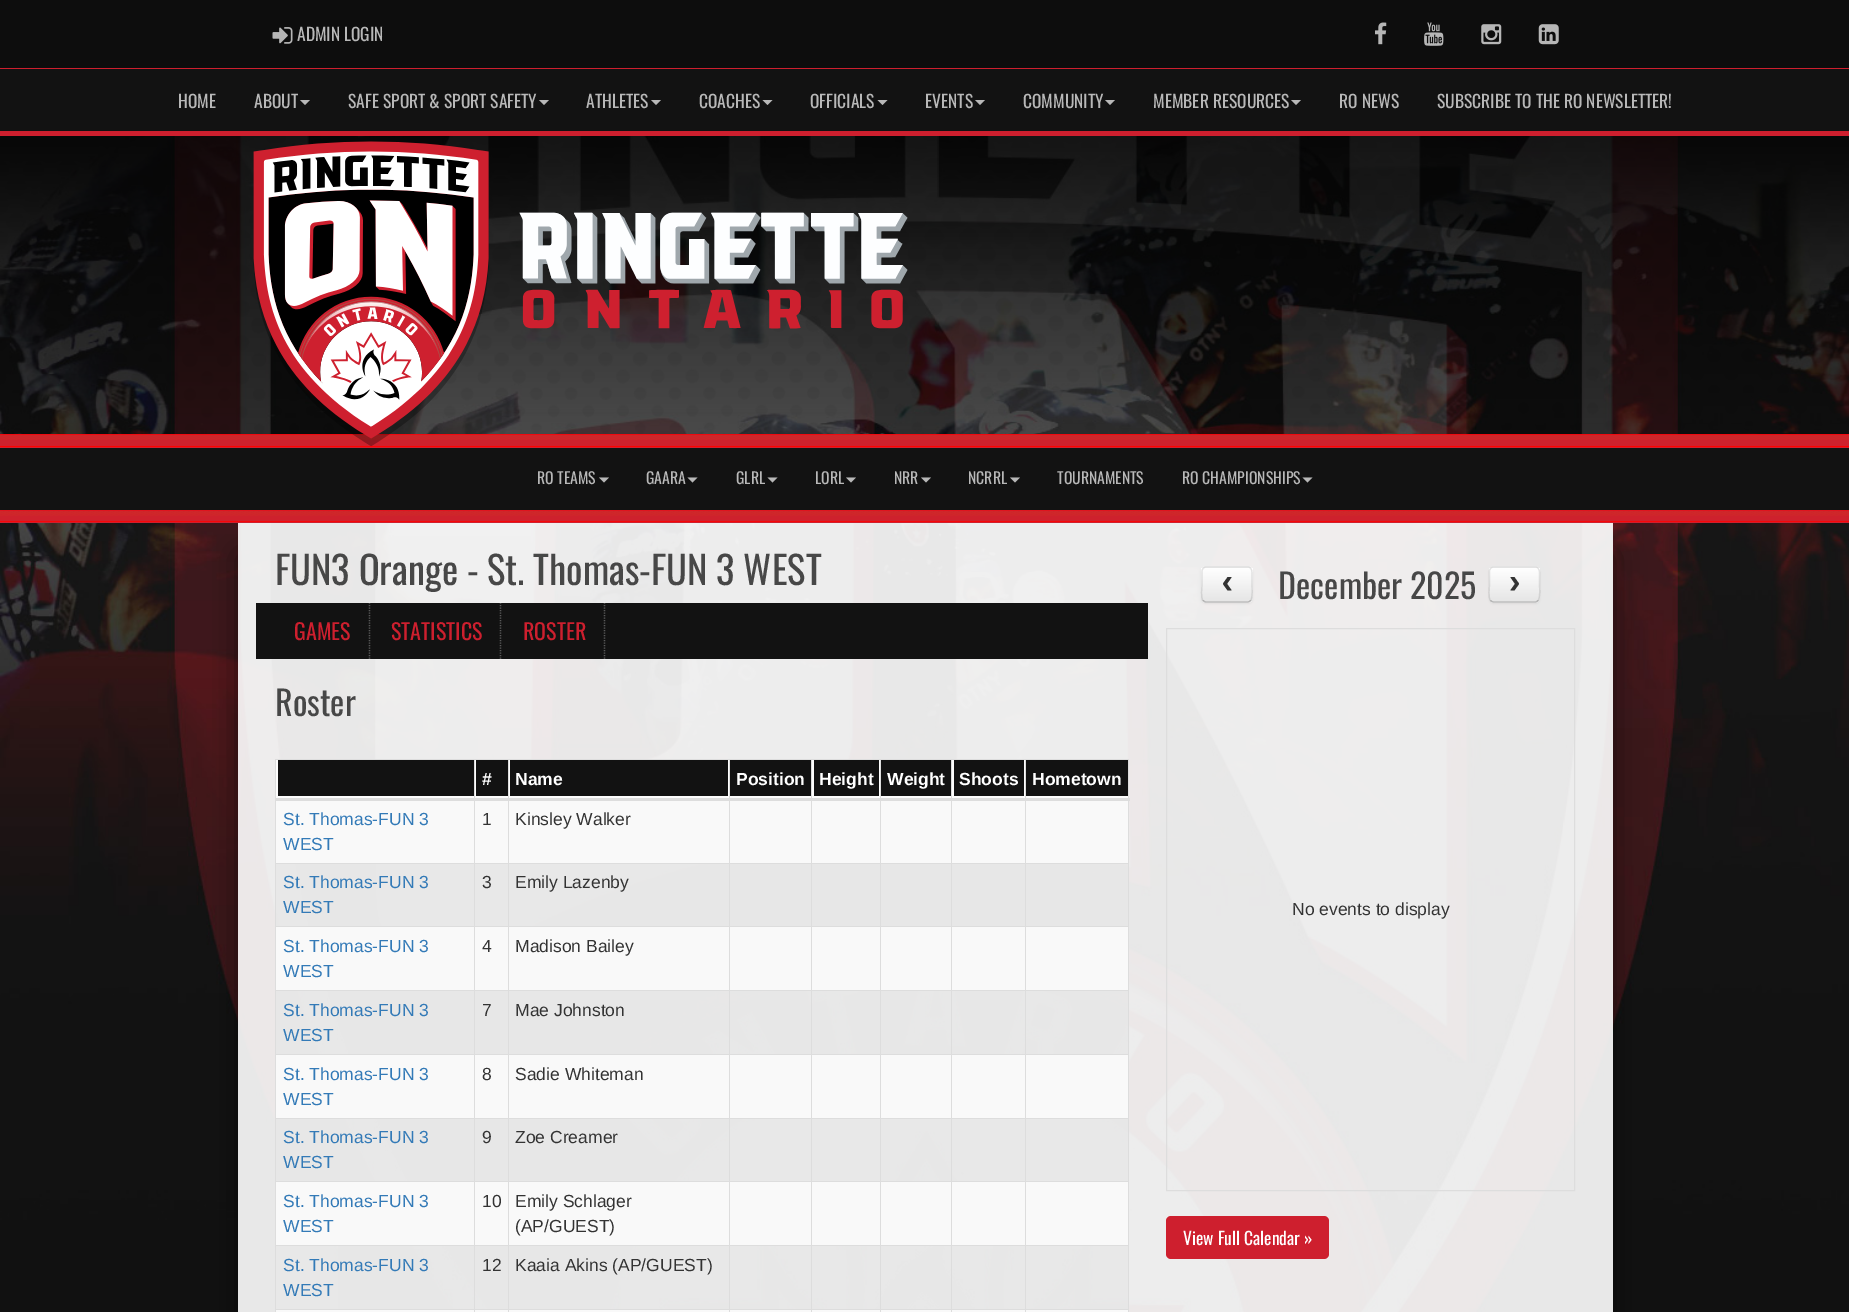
%!PS
<< /PageSize [1849 1312] /PageUsesTransparency true >> setpagedevice
/mt/moveto load def
/li/lineto load def
/ct/curveto load def
/cp/closepath load def
/fl/fill load def
/st/stroke load def
/gs/gsave load def
/gr/grestore load def
/lw/setlinewidth load def
/co { dup -16 bitshift 255 div exch dup -8 bitshift 255 and 255 div exch 255 and 255 div setrgbcolor } def
/fn { [ exch dup neg 0 0 3 -1 roll 0 0 ] selectfont } def
/tx { co fn moveto show } def
/bx { co rectfill } def
/al { dup .setfillconstantalpha .setstrokeconstantalpha } def
/rr { 5 dict begin { /r /h /w /y /x } { exch def } forall
  x r add y moveto x w add y 2 copy h add r arct x w add y h add x 1 index r arct
  x y h add x y r arct x y 2 copy exch w add exch r arct closepath end } def
/sh { 12 dict begin { /a /b /q /h /w /y /x } { exch def } forall gsave /was 0 def
  9 -2 -9 { dup b mul 4 div /e exch def 1 sub .425 mul 2.718 exch exp 1 add a .99 .min exch div /now exch def
    1 1 now sub 1 was sub div sub al /was now def
    w h .min e 2 mul add 0 gt { x e sub y e sub w e 2 mul add h e 2 mul add
      q e add b .6 mul add w h .min 2 div e add .min 0 .max rr fill } if } for grestore end } def
/im { 5 dict begin { /h /w /y /x /name } { exch def } forall
  gsave x y translate w h scale
  w h 8 [w 0 0 h 0 0] name (r) file false 3 colorimage grestore end } def
0 .pushpdf14devicefilter
0 1312 translate 1 -1 scale
4 setmiterlimit
0 0 1849 1312 16#FFFFFF bx
0 68 1849 1 16#CE1F2E bx
0 0 1849 68 16#0D0D0D bx
(media/1.raw) 272 27 21 17 im
(media/2.raw) 1375 22 12 23 im
(media/3.raw) 1424 22 20 24 im
(media/4.raw) 1481 24 21 21 im
(media/5.raw) 1538 24 21 21 im
0 69 1849 62 16#121212 bx
0 131 1849 5 16#CE1F2E bx
16#B8B8B8 co
300 100 mt 310 100 li 305 105 li cp fl
539 100 mt 549 100 li 544 105 li cp fl
651 100 mt 661 100 li 656 105 li cp fl
762.5 100 mt 772.5 100 li 767.5 105 li cp fl
877.5 100 mt 887.5 100 li 882.5 105 li cp fl
975 100 mt 985 100 li 980 105 li cp fl
1105 100 mt 1115 100 li 1110 105 li cp fl
1291 100 mt 1301 100 li 1296 105 li cp fl
(media/6.raw) 0 136 1849 1176 im
(media/7.raw) 0 136 1849 298 im
0 434 1849 14 16#CE1F2E bx
(media/9.raw) 0 434 1849 13 im
(media/8.raw) 253 141 655 306 im
gs
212 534 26 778 rectclip
16#000000 co
238 554 1312 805 0 15.5 .45 sh
gr
gs
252 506 mt 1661 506 li 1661 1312 li 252 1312 li cp 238 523 mt 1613 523 li 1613 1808 li 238 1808 li cp eoclip newpath
16#000000 co
300 554 1313 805 0 15.5 .45 sh
gr
0 448 1849 62 16#121212 bx
16#B8B8B8 co
599 477.5 mt 609 477.5 li 604 482.5 li cp fl
687.5 477.5 mt 697.5 477.5 li 692.5 482.5 li cp fl
767.5 477.5 mt 777.5 477.5 li 772.5 482.5 li cp fl
846 477.5 mt 856 477.5 li 851 482.5 li cp fl
921 477.5 mt 931 477.5 li 926 482.5 li cp fl
1010 477.5 mt 1020 477.5 li 1015 482.5 li cp fl
1302.5 477.5 mt 1312.5 477.5 li 1307.5 482.5 li cp fl
0 510 1849 13 16#CE1F2E bx
(media/10.raw) 0 510 1849 12 im
0.9 al
238 523 1375 789 16#FFFFFF bx
1 al
256 603 892 56 16#121212 bx
0.3 al
16#FFFFFF co
1.2 lw
[1.25 1.25] 0 setdash
369.5 602.5 mt 369.5 659 li st
500.5 602.5 mt 500.5 659 li st
604.5 602.5 mt 604.5 659 li st
1 al
275 759 854 1 16#DDDDDD bx
276 1310 853 2 16#F9F9F9 bx
1128 759 1 553 16#DDDDDD bx
275 759 1 553 16#DDDDDD bx
0.9 al
276 760 852 38 16#FFFFFF bx
1 al
278 760 196 36 16#121212 bx
476 760 32 36 16#121212 bx
510 760 218 36 16#121212 bx
730 760 81 36 16#121212 bx
814 760 65 36 16#121212 bx
881 760 70 36 16#121212 bx
954 760 70 36 16#121212 bx
1026 760 102 36 16#121212 bx
276 801 852 62 16#F9F9F9 bx
1025 863 104 1 16#DDDDDD bx
0.9 al
276 864 852 62 16#E7E7E7 bx
1 al
276 927 852 63 16#F9F9F9 bx
1025 926 104 1 16#DDDDDD bx
1025 990 104 1 16#DDDDDD bx
0.9 al
276 991 852 63 16#E7E7E7 bx
1 al
1025 1054 104 1 16#DDDDDD bx
276 1055 852 63 16#F9F9F9 bx
1025 1118 104 1 16#DDDDDD bx
0.9 al
276 1119 852 62 16#E7E7E7 bx
1 al
276 1182 852 63 16#F9F9F9 bx
1025 1181 104 1 16#DDDDDD bx
1025 1245 104 1 16#DDDDDD bx
0.9 al
338 1246 790 63 16#E7E7E7 bx
1 al
1025 1309 104 1 16#DDDDDD bx
1025 1309 1 3 16#DDDDDD bx
951 1309 75 1 16#DDDDDD bx
1025 1245 1 65 16#DDDDDD bx
951 1245 75 1 16#DDDDDD bx
1025 1181 1 65 16#DDDDDD bx
951 1181 75 1 16#DDDDDD bx
1025 1118 1 65 16#DDDDDD bx
951 1118 75 1 16#DDDDDD bx
1025 1054 1 65 16#DDDDDD bx
951 1054 75 1 16#DDDDDD bx
1025 990 1 65 16#DDDDDD bx
951 990 75 1 16#DDDDDD bx
1025 926 1 65 16#DDDDDD bx
951 926 75 1 16#DDDDDD bx
1025 863 1 65 16#DDDDDD bx
951 863 75 1 16#DDDDDD bx
951 1309 1 3 16#DDDDDD bx
880 1309 73 1 16#DDDDDD bx
951 1245 1 65 16#DDDDDD bx
880 1245 73 1 16#DDDDDD bx
951 1181 1 65 16#DDDDDD bx
880 1181 73 1 16#DDDDDD bx
951 1118 1 65 16#DDDDDD bx
880 1118 73 1 16#DDDDDD bx
951 1054 1 65 16#DDDDDD bx
880 1054 73 1 16#DDDDDD bx
951 990 1 65 16#DDDDDD bx
880 990 73 1 16#DDDDDD bx
951 926 1 65 16#DDDDDD bx
880 926 73 1 16#DDDDDD bx
951 863 1 65 16#DDDDDD bx
880 863 73 1 16#DDDDDD bx
880 1309 1 3 16#DDDDDD bx
811 1309 70 1 16#DDDDDD bx
880 1245 1 65 16#DDDDDD bx
811 1245 70 1 16#DDDDDD bx
880 1181 1 65 16#DDDDDD bx
811 1181 70 1 16#DDDDDD bx
880 1118 1 65 16#DDDDDD bx
811 1118 70 1 16#DDDDDD bx
880 1054 1 65 16#DDDDDD bx
811 1054 70 1 16#DDDDDD bx
880 990 1 65 16#DDDDDD bx
811 990 70 1 16#DDDDDD bx
880 926 1 65 16#DDDDDD bx
811 926 70 1 16#DDDDDD bx
880 863 1 65 16#DDDDDD bx
811 863 70 1 16#DDDDDD bx
811 1309 1 3 16#DDDDDD bx
729 1309 84 1 16#DDDDDD bx
811 1245 1 65 16#DDDDDD bx
729 1245 84 1 16#DDDDDD bx
811 1181 1 65 16#DDDDDD bx
729 1181 84 1 16#DDDDDD bx
811 1118 1 65 16#DDDDDD bx
729 1118 84 1 16#DDDDDD bx
811 1054 1 65 16#DDDDDD bx
729 1054 84 1 16#DDDDDD bx
811 990 1 65 16#DDDDDD bx
729 990 84 1 16#DDDDDD bx
811 926 1 65 16#DDDDDD bx
729 926 84 1 16#DDDDDD bx
811 863 1 65 16#DDDDDD bx
729 863 84 1 16#DDDDDD bx
729 1309 1 3 16#DDDDDD bx
508 1309 222 1 16#DDDDDD bx
729 1245 1 65 16#DDDDDD bx
508 1245 222 1 16#DDDDDD bx
729 1181 1 65 16#DDDDDD bx
508 1181 222 1 16#DDDDDD bx
729 1118 1 65 16#DDDDDD bx
508 1118 222 1 16#DDDDDD bx
729 1054 1 65 16#DDDDDD bx
508 1054 222 1 16#DDDDDD bx
729 990 1 65 16#DDDDDD bx
508 990 222 1 16#DDDDDD bx
729 926 1 65 16#DDDDDD bx
508 926 222 1 16#DDDDDD bx
729 863 1 65 16#DDDDDD bx
508 863 222 1 16#DDDDDD bx
508 1309 1 3 16#DDDDDD bx
474 1309 35 1 16#DDDDDD bx
508 1245 1 65 16#DDDDDD bx
474 1245 35 1 16#DDDDDD bx
508 1181 1 65 16#DDDDDD bx
474 1181 35 1 16#DDDDDD bx
508 1118 1 65 16#DDDDDD bx
474 1118 35 1 16#DDDDDD bx
508 1054 1 65 16#DDDDDD bx
474 1054 35 1 16#DDDDDD bx
508 990 1 65 16#DDDDDD bx
474 990 35 1 16#DDDDDD bx
508 926 1 65 16#DDDDDD bx
474 926 35 1 16#DDDDDD bx
508 863 1 65 16#DDDDDD bx
474 863 35 1 16#DDDDDD bx
474 1309 1 3 16#DDDDDD bx
275 1309 200 1 16#DDDDDD bx
474 1245 1 65 16#DDDDDD bx
275 1245 200 1 16#DDDDDD bx
474 1181 1 65 16#DDDDDD bx
275 1181 200 1 16#DDDDDD bx
474 1118 1 65 16#DDDDDD bx
275 1118 200 1 16#DDDDDD bx
474 1054 1 65 16#DDDDDD bx
275 1054 200 1 16#DDDDDD bx
474 990 1 65 16#DDDDDD bx
275 990 200 1 16#DDDDDD bx
474 926 1 65 16#DDDDDD bx
275 926 200 1 16#DDDDDD bx
474 863 1 65 16#DDDDDD bx
275 863 200 1 16#DDDDDD bx
474 759 1 105 16#DDDDDD bx
508 759 1 105 16#DDDDDD bx
729 759 1 105 16#DDDDDD bx
811 759 1 105 16#DDDDDD bx
880 759 1 105 16#DDDDDD bx
951 759 1 105 16#DDDDDD bx
1025 759 1 105 16#DDDDDD bx
275 798 855 3 16#DDDDDD bx
16#000000 co
1201 568 52 36 5 1 .05 sh
16#F5F5F5 co
1201 566 52 37 5 rr fl
gs
1201 566 52 37 5 rr clip newpath
gs 1201 568 mt 1253 568 li 1253 601 li 1201 601 li cp clip newpath
<< /ShadingType 2 /ColorSpace /DeviceRGB /Coords [1227 568 1227 601] /Extend [true true] /Function << /FunctionType 2 /Domain [0 1] /C0 [1 1 1] /C1 [.902 .902 .902] /N 1 >> >> shfill gr
gr
0.25 al
16#000000 co
[] 0 setdash
1250.5 600.5 mt 1250 601.5 1248.5 602 1247.5 602 ct 1206 602 li 1205 602 1204 601.5 1203 600.5 ct st
0.1 al
1203 600.5 mt 1200.5 598 1202 587.5 1202 584.5 ct 1202 575.5 li 1202 572.5 1201 568 1205.5 567 ct 1248.5 567 li 1252.5 568 1252 572.5 1252 575.5 ct 1252 584.5 li 1252 587.5 1253 598 1250.5 600.5 ct st
1 al
1489 568 51 36 5 1 .05 sh
16#F5F5F5 co
1489 566 51 37 5 rr fl
gs
1489 566 51 37 5 rr clip newpath
gs 1489 568 mt 1540 568 li 1540 601 li 1489 601 li cp clip newpath
<< /ShadingType 2 /ColorSpace /DeviceRGB /Coords [1514 568 1514 601] /Extend [true true] /Function << /FunctionType 2 /Domain [0 1] /C0 [1 1 1] /C1 [.902 .902 .902] /N 1 >> >> shfill gr
gr
0.25 al
16#000000 co
1538 600.5 mt 1537.5 601.5 1536 602 1535 602 ct 1494 602 li 1492.5 602 1491.5 601.5 1490.5 600.5 ct st
0.1 al
1490.5 600.5 mt 1488 598 1489.5 587.5 1489.5 584.5 ct 1489.5 575.5 li 1489.5 572.5 1488.5 568 1493 567 ct 1536 567 li 1540 568 1539.5 572.5 1539.5 575.5 ct 1539.5 584.5 li 1539.5 587.5 1540.5 598 1538 600.5 ct st
1 al
16#DDDDDD co
1 lw
1166.5 628.5 408 562 rectstroke
16#CE1F2E co
1166 1216 163 43 5 rr fl
(ADMIN LOGIN) 297 41 /Oswald-Regular 17.5 16#B8B8B8 tx
(HOME) 178 108 /Oswald-Regular 17.5 16#B8B8B8 tx
(ABOUT) 254 108 /Oswald-Regular 17.5 16#B8B8B8 tx
(SAFE SPORT & SPORT SAFETY) 348 108 /Oswald-Regular 17.5 16#B8B8B8 tx
(ATHLETES) 586 108 /Oswald-Regular 17.5 16#B8B8B8 tx
(COACHES) 699 108 /Oswald-Regular 17.5 16#B8B8B8 tx
(OFFICIALS) 810 108 /Oswald-Regular 17.5 16#B8B8B8 tx
(EVENTS) 925 108 /Oswald-Regular 17.5 16#B8B8B8 tx
(COMMUNITY) 1023 108 /Oswald-Regular 17.5 16#B8B8B8 tx
(MEMBER RESOURCES) 1153 108 /Oswald-Regular 17.5 16#B8B8B8 tx
(RO NEWS) 1339 108 /Oswald-Regular 17.5 16#B8B8B8 tx
(SUBSCRIBE TO THE RO NEWSLETTER!) 1437 108 /Oswald-Regular 17.5 16#B8B8B8 tx
(RO TEAMS) 537 484 /Oswald-Regular 15.75 16#B8B8B8 tx
(GAARA) 646 484 /Oswald-Regular 15.75 16#B8B8B8 tx
(GLRL) 736 484 /Oswald-Regular 15.75 16#B8B8B8 tx
(LORL) 815 484 /Oswald-Regular 15.75 16#B8B8B8 tx
(NRR) 894 484 /Oswald-Regular 15.75 16#B8B8B8 tx
(NCRRL) 968 484 /Oswald-Regular 15.75 16#B8B8B8 tx
(TOURNAMENTS) 1057 484 /Oswald-Regular 15.75 16#B8B8B8 tx
(RO CHAMPIONSHIPS) 1182 484 /Oswald-Regular 15.75 16#B8B8B8 tx
(FUN3 Orange) 275 585 /Oswald-Regular 38.6 16#474747 tx
(-) 467 585 /Oswald-Regular 38.6 16#474747 tx
(St. Thomas-FUN 3 WEST) 487 585 /Oswald-Regular 38.6 16#474747 tx
(GAMES) 294 640 /Oswald-Regular 22 16#CE1F2E tx
(STATISTICS) 391 640 /Oswald-Regular 22 16#CE1F2E tx
(ROSTER) 523 640 /Oswald-Regular 22 16#CE1F2E tx
(Roster) 275 716 /Oswald-Regular 34 16#474747 tx
(#) 482 785 /LiberationSans-Bold 17.5 16#FFFFFF tx
(Name) 515 785 /LiberationSans-Bold 17.5 16#FFFFFF tx
(Position) 736 785 /LiberationSans-Bold 17.5 16#FFFFFF tx
(Height) 819 785 /LiberationSans-Bold 17.5 16#FFFFFF tx
(Weight) 887 785 /LiberationSans-Bold 17.5 16#FFFFFF tx
(Shoots) 959 785 /LiberationSans-Bold 17.5 16#FFFFFF tx
(Hometown) 1032 785 /LiberationSans-Bold 17.5 16#FFFFFF tx
(St. Thomas-FUN 3) 283 825 /LiberationSans-Regular 17.5 16#337AB7 tx
(WEST) 283 850 /LiberationSans-Regular 17.5 16#337AB7 tx
(1) 482 825 /LiberationSans-Regular 17.5 16#333333 tx
(Kinsley Walker) 515 825 /LiberationSans-Regular 17.5 16#333333 tx
(St. Thomas-FUN 3) 283 888 /LiberationSans-Regular 17.5 16#337AB7 tx
(WEST) 283 913 /LiberationSans-Regular 17.5 16#337AB7 tx
(3) 482 888 /LiberationSans-Regular 17.5 16#333333 tx
(Emily Lazenby) 515 888 /LiberationSans-Regular 17.5 16#333333 tx
(St. Thomas-FUN 3) 283 952 /LiberationSans-Regular 17.5 16#337AB7 tx
(WEST) 283 977 /LiberationSans-Regular 17.5 16#337AB7 tx
(4) 482 952 /LiberationSans-Regular 17.5 16#333333 tx
(Madison Bailey) 515 952 /LiberationSans-Regular 17.5 16#333333 tx
(St. Thomas-FUN 3) 283 1016 /LiberationSans-Regular 17.5 16#337AB7 tx
(WEST) 283 1041 /LiberationSans-Regular 17.5 16#337AB7 tx
(7) 482 1016 /LiberationSans-Regular 17.5 16#333333 tx
(Mae Johnston) 515 1016 /LiberationSans-Regular 17.5 16#333333 tx
(St. Thomas-FUN 3) 283 1080 /LiberationSans-Regular 17.5 16#337AB7 tx
(WEST) 283 1105 /LiberationSans-Regular 17.5 16#337AB7 tx
(8) 482 1080 /LiberationSans-Regular 17.5 16#333333 tx
(Sadie Whiteman) 515 1080 /LiberationSans-Regular 17.5 16#333333 tx
(St. Thomas-FUN 3) 283 1143 /LiberationSans-Regular 17.5 16#337AB7 tx
(WEST) 283 1168 /LiberationSans-Regular 17.5 16#337AB7 tx
(9) 482 1143 /LiberationSans-Regular 17.5 16#333333 tx
(Zoe Creamer) 515 1143 /LiberationSans-Regular 17.5 16#333333 tx
(St. Thomas-FUN 3) 283 1207 /LiberationSans-Regular 17.5 16#337AB7 tx
(WEST) 283 1232 /LiberationSans-Regular 17.5 16#337AB7 tx
(10) 482 1207 /LiberationSans-Regular 17.5 16#333333 tx
(Emily Schlager) 515 1207 /LiberationSans-Regular 17.5 16#333333 tx
(\(AP/GUEST\)) 515 1232 /LiberationSans-Regular 17.5 16#333333 tx
(St. Thomas-FUN 3) 283 1271 /LiberationSans-Regular 17.5 16#337AB7 tx
(WEST) 283 1296 /LiberationSans-Regular 17.5 16#337AB7 tx
(12) 482 1271 /LiberationSans-Regular 17.5 16#333333 tx
(Kaaia Akins \(AP/GUEST\)) 515 1271 /LiberationSans-Regular 17.5 16#333333 tx
(‹) 1217 593 /LiberationMono-Bold 35 16#333333 tx
(December 2025) 1278 599 /Oswald-Regular 34 16#474747 tx
(›) 1504 593 /LiberationMono-Bold 35 16#333333 tx
(No events to display) 1292 915 /LiberationSans-Regular 17.5 16#333333 tx
(View Full Calendar ») 1183 1245 /Oswald-Regular 17.5 16#FFFFFF tx
.poppdf14devicefilter showpage
